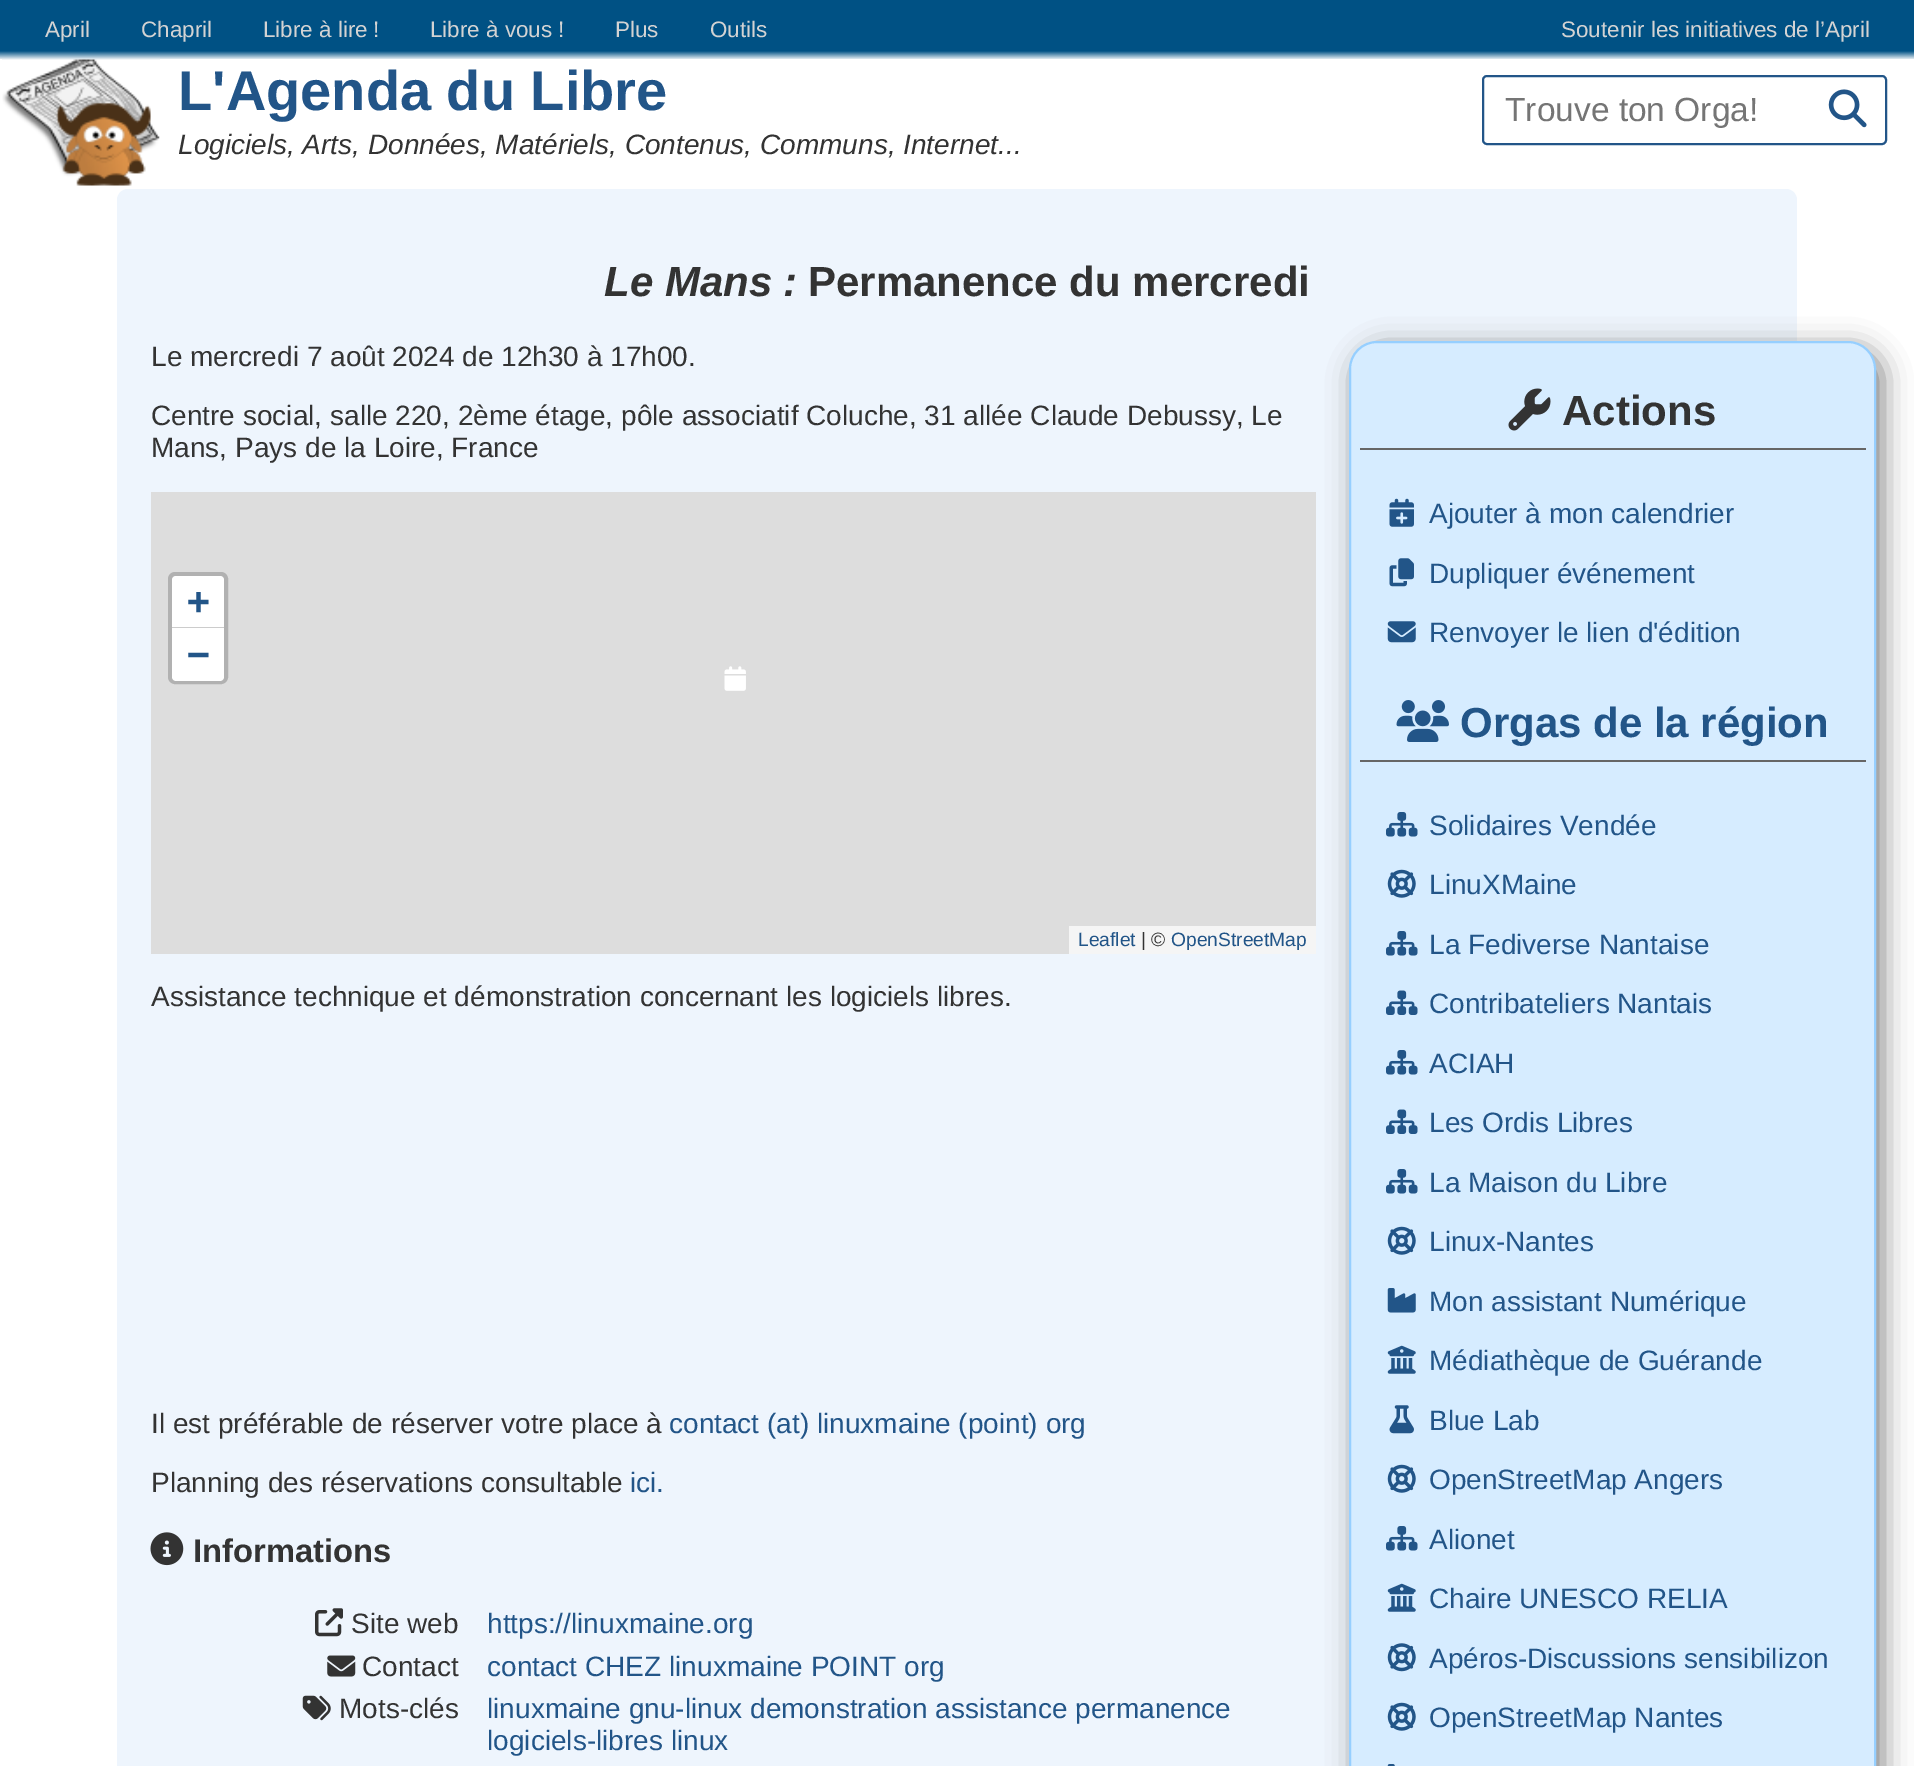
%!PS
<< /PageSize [1914 1766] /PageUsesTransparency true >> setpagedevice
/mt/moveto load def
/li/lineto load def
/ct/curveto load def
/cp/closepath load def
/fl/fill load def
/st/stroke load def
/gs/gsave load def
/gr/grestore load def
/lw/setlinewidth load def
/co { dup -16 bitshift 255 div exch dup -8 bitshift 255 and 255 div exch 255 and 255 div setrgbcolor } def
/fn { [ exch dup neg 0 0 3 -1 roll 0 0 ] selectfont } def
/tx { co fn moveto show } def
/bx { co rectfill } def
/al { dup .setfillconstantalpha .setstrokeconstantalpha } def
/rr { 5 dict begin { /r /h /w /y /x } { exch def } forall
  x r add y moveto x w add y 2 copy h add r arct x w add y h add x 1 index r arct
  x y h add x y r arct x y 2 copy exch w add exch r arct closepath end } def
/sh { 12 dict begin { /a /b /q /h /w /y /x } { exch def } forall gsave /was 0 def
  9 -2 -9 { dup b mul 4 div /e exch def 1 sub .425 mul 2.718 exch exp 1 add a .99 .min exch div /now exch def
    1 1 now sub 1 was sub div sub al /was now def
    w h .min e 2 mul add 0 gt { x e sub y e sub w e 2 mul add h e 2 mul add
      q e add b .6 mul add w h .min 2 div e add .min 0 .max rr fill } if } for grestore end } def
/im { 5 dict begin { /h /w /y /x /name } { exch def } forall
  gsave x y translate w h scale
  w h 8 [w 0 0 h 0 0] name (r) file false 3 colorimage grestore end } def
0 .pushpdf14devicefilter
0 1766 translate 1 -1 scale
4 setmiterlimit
0 0 1914 1766 16#FFFFFF bx
gs 0 0 mt 1914 0 li 1914 60 li 0 60 li cp clip newpath
<< /ShadingType 2 /ColorSpace /DeviceRGB /Coords [957 0 957 60] /Extend [true true] /Function << /FunctionType 3 /Domain [0 1] /Functions [<< /FunctionType 2 /Domain [0 1] /C0 [0 .318 .518] /C1 [0 .318 .518] /N 1 >> << /FunctionType 2 /Domain [0 1] /C0 [0 .318 .518] /C1 [1 1 1] /N 1 >>] /Bounds [.85] /Encode [0 1 0 1] >> >> shfill gr
(media/1.raw) 2 59 158 127 im
16#225588 co
2 lw
1483 76 403 68 4 rr st
(media/2.raw) 1828 89 39 39 im
16#EEF5FD co
117 189 1680 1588 11 rr fl
151 492 1165 462 16#DDDDDD bx
16#808080 co
1356 348 527 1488 28 14 1 sh
16#D6ECFF co
1350 342 525 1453 27 rr gs fl gr
16#96CFFF co
st
1360 448 506 2 16#666666 bx
(media/3.raw) 1508 388 43 43 im
(media/4.raw) 1389 498 25 29 im
(media/5.raw) 1389 558 25 29 im
(media/6.raw) 1387 621 29 22 im
1360 760 506 2 16#666666 bx
(media/7.raw) 1396 700 53 42 im
(media/8.raw) 1386 812 32 25 im
(media/9.raw) 1387 869 29 29 im
(media/8.raw) 1386 931 32 25 im
(media/10.raw) 1386 990 32 25 im
(media/8.raw) 1386 1050 32 25 im
(media/10.raw) 1386 1109 32 25 im
(media/8.raw) 1386 1169 32 25 im
(media/9.raw) 1387 1226 29 29 im
(media/11.raw) 1387 1288 29 25 im
(media/12.raw) 1387 1345 29 29 im
(media/13.raw) 1389 1405 25 29 im
(media/9.raw) 1387 1464 29 29 im
(media/8.raw) 1386 1526 32 25 im
(media/12.raw) 1387 1583 29 29 im
(media/14.raw) 1387 1643 29 29 im
(media/9.raw) 1387 1702 29 29 im
(media/15.raw) 1387 1764 8 2 im
16#B1B1B1 co
4 lw
170 574 56 108 5 rr st
16#FFFFFF co
176 576 mt 220 576 li 222 576 224 578 224 580 ct 224 628 li 172 628 li 172 580 li 172 578 174 576 176 576 ct cp fl
172 627 52 1 16#CCCCCC bx
16#FFFFFF co
172 628 mt 224 628 li 224 677 li 224 679 222 681 220 681 ct 176 681 li 174 681 172 679 172 677 ct cp fl
1069 926 247 28 16#F5F5F5 bx
(media/16.raw) 724 666 22 25 im
(media/17.raw) 150 1532 34 34 im
(media/18.raw) 315 1608 28 29 im
(media/19.raw) 327 1655 29 22 im
(media/20.raw) 302 1695 29 26 im
(April) 45 37 /LiberationSans-Regular 22.4 16#D3D3D3 tx
(Chapril) 141 37 /LiberationSans-Regular 22.4 16#D3D3D3 tx
(Libre à lire) 263 37 /LiberationSans-Regular 22.4 16#D3D3D3 tx
(!) 373 37 /LiberationSans-Regular 22.4 16#D3D3D3 tx
(Libre à vous) 430 37 /LiberationSans-Regular 22.4 16#D3D3D3 tx
(!) 558 37 /LiberationSans-Regular 22.4 16#D3D3D3 tx
(Plus) 615 37 /LiberationSans-Regular 22.4 16#D3D3D3 tx
(Outils) 710 37 /LiberationSans-Regular 22.4 16#D3D3D3 tx
(Soutenir les initiatives de l’April) 1561 37 /LiberationSans-Regular 22.4 16#D3D3D3 tx
(L'Agenda du Libre) 178 110 /LiberationSans-Bold 56 16#225588 tx
(Trouve ton Orga!) 1505 121 /LiberationSans-Regular 33.5 16#757575 tx
(Logiciels, Arts, Données, Matériels, Contenus, Communs, Internet...) 178 154 /LiberationSans-Italic 28 16#333333 tx
(Le Mans) 604 296 /LiberationSans-BoldItalic 42 16#333333 tx
(:) 783 296 /LiberationSans-BoldItalic 42 16#333333 tx
(Permanence du mercredi) 808 296 /LiberationSans-Bold 42 16#333333 tx
(Le mercredi 7 août 2024 de 12h30 à 17h00.) 151 366 /LiberationSans-Regular 28 16#333333 tx
(Centre social, salle 220, 2ème étage, pôle associatif Coluche, 31 allée Claude Debussy, Le) 151 425 /LiberationSans-Regular 28 16#333333 tx
(Mans, Pays de la Loire, France) 151 457 /LiberationSans-Regular 28 16#333333 tx
(Actions) 1562 425 /LiberationSans-Bold 42 16#333333 tx
(Ajouter à mon calendrier) 1429 523 /LiberationSans-Regular 28 16#225588 tx
(Dupliquer événement) 1429 583 /LiberationSans-Regular 28 16#225588 tx
(Renvoyer le lien d'édition) 1429 642 /LiberationSans-Regular 28 16#225588 tx
(Orgas de la région) 1460 737 /LiberationSans-Bold 42 16#225588 tx
(Solidaires Vendée) 1429 835 /LiberationSans-Regular 28 16#225588 tx
(LinuXMaine) 1429 894 /LiberationSans-Regular 28 16#225588 tx
(La Fediverse Nantaise) 1429 954 /LiberationSans-Regular 28 16#225588 tx
(Contribateliers Nantais) 1429 1013 /LiberationSans-Regular 28 16#225588 tx
(ACIAH) 1429 1073 /LiberationSans-Regular 28 16#225588 tx
(Les Ordis Libres) 1429 1132 /LiberationSans-Regular 28 16#225588 tx
(La Maison du Libre) 1429 1192 /LiberationSans-Regular 28 16#225588 tx
(Linux-Nantes) 1429 1251 /LiberationSans-Regular 28 16#225588 tx
(Mon assistant Numérique) 1429 1311 /LiberationSans-Regular 28 16#225588 tx
(Médiathèque de Guérande) 1429 1370 /LiberationSans-Regular 28 16#225588 tx
(Blue Lab) 1429 1430 /LiberationSans-Regular 28 16#225588 tx
(OpenStreetMap Angers) 1429 1489 /LiberationSans-Regular 28 16#225588 tx
(Alionet) 1429 1549 /LiberationSans-Regular 28 16#225588 tx
(Chaire UNESCO RELIA) 1429 1608 /LiberationSans-Regular 28 16#225588 tx
(Apéros-Discussions sensibilizon) 1429 1668 /LiberationSans-Regular 28 16#225588 tx
(OpenStreetMap Nantes) 1429 1727 /LiberationSans-Regular 28 16#225588 tx
(+) 187 614 /DejaVuSansMono-Bold 38 16#225588 tx
(−) 187 667 /DejaVuSansMono-Bold 38 16#225588 tx
(Leaflet) 1078 946 /LiberationSans-Regular 19.25 16#225588 tx
(| ©) 1141 946 /LiberationSans-Regular 19.25 16#333333 tx
(OpenStreetMap) 1171 946 /LiberationSans-Regular 19.25 16#225588 tx
(Assistance technique et démonstration concernant les logiciels libres.) 151 1006 /LiberationSans-Regular 28 16#333333 tx
(Il est préférable de réserver votre place à) 151 1433 /LiberationSans-Regular 28 16#333333 tx
(contact \(at\) linuxmaine \(point\) org) 669 1433 /LiberationSans-Regular 28 16#225588 tx
(Planning des réservations consultable) 151 1492 /LiberationSans-Regular 28 16#333333 tx
(ici.) 630 1492 /LiberationSans-Regular 28 16#225588 tx
(Informations) 193 1562 /LiberationSans-Bold 32.75 16#333333 tx
(Site web) 351 1633 /LiberationSans-Regular 28 16#333333 tx
(https://linuxmaine.org) 487 1633 /LiberationSans-Regular 28 16#225588 tx
(Contact) 362 1676 /LiberationSans-Regular 28 16#333333 tx
(contact CHEZ linuxmaine POINT org) 487 1676 /LiberationSans-Regular 28 16#225588 tx
(Mots-clés) 339 1718 /LiberationSans-Regular 28 16#333333 tx
(linuxmaine gnu-linux demonstration assistance permanence) 487 1718 /LiberationSans-Regular 28 16#225588 tx
(logiciels-libres linux) 487 1750 /LiberationSans-Regular 28 16#225588 tx
.poppdf14devicefilter showpage
